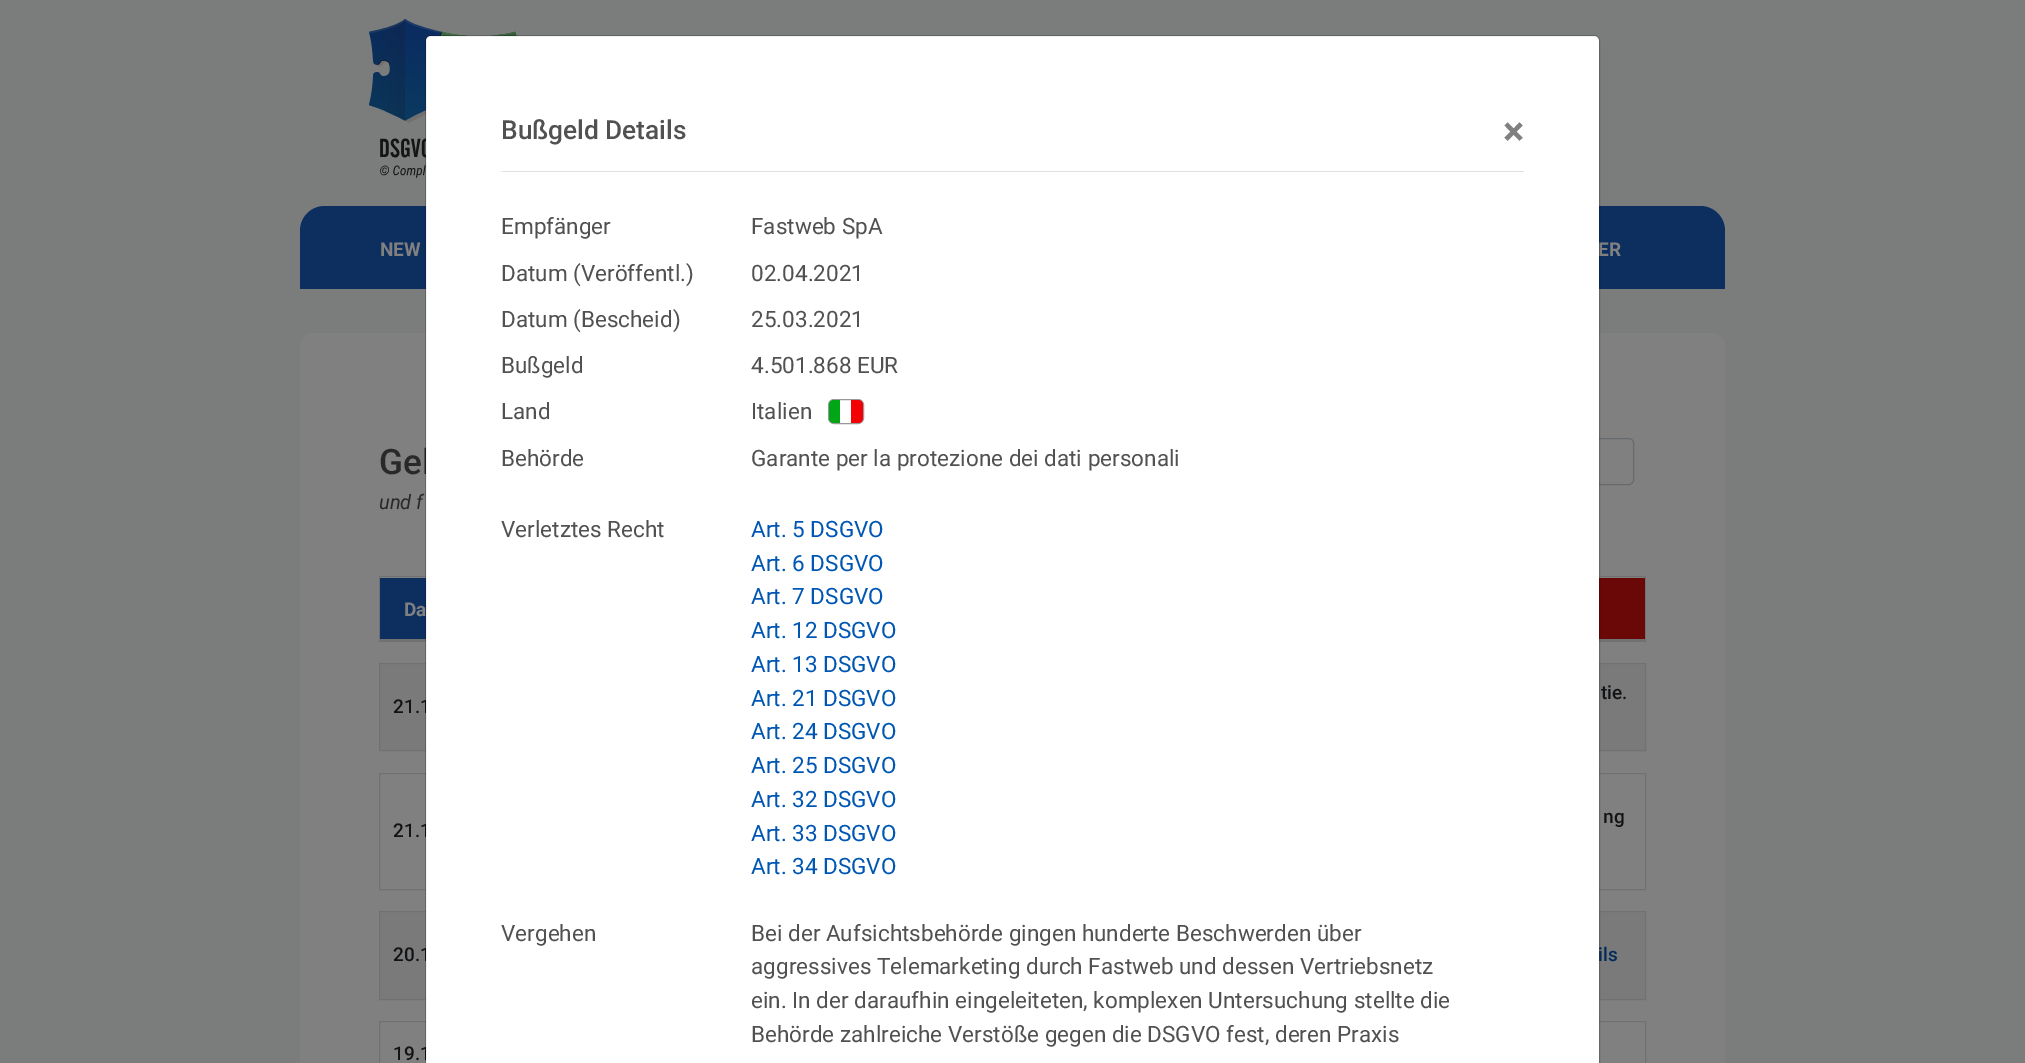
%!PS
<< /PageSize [2025 1063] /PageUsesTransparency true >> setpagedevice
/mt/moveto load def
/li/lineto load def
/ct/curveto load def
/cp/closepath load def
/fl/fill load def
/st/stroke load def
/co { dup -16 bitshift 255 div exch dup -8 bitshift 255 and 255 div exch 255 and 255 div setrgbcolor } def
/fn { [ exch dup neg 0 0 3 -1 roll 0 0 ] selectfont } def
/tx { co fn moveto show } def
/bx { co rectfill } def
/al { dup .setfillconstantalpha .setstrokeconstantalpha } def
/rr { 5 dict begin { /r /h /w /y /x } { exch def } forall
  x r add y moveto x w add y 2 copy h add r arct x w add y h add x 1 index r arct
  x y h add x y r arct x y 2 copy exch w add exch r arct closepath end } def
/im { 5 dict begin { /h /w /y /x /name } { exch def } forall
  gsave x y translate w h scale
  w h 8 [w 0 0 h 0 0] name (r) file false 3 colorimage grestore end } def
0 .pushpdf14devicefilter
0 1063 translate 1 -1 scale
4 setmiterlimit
0 0 2025 1063 16#7B7C7C bx
(media/1.raw) 369 19 150 159 im
16#0D2F60 co
325 206 mt 1700 206 li 1714 206 1725 217 1725 231 ct 1725 289 li 300 289 li 300 231 li 300 217 311 206 325 206 ct cp fl
16#808080 co
313 333 mt 1712 333 li 1719 333 1725 339 1725 346 ct 1725 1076 li 300 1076 li 300 346 li 300 339 306 333 313 333 ct cp fl
16#676A6D co
1301.5 438.5 332 46 4.5 rr st
380 578 46 61 16#0D2F60 bx
379 576 47 1 16#6F7173 bx
379 639 47 3 16#6F7173 bx
379 576 1 65 16#6F7173 bx
1599 578 46 61 16#6A0707 bx
1599 576 47 1 16#6F7173 bx
1645 576 1 65 16#6F7173 bx
1599 639 47 3 16#6F7173 bx
380 664 1265 86 16#7A7A7A bx
16#6F7173 co
1111.5 663.5 534 87 rectstroke
379.5 663.5 121 87 rectstroke
1111.5 773.5 534 116 rectstroke
379.5 773.5 121 116 rectstroke
380 912 1265 87 16#7A7A7A bx
16#6F7173 co
379.5 911.5 121 88 rectstroke
1111.5 911.5 534 88 rectstroke
379.5 1021.5 121 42 rectstroke
1111.5 1021.5 534 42 rectstroke
(NEW) 380 256 /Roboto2-Bold 19 16#808080 tx
(ER) 1598 256 /Roboto2-Bold 19 16#808080 tx
(Gel) 379 474 /Roboto-Medium 35 16#292929 tx
(und f) 379 509 /Roboto-Italic 20 16#292929 tx
(Da) 404 616 /Roboto-Bold 19 16#808080 tx
(tie.) 1601 699 /Roboto-Medium 19 16#111315 tx
(21.1) 393 713 /Roboto-Medium 19 16#111315 tx
(ng) 1603 823 /Roboto-Medium 19 16#111315 tx
(21.1) 393 837 /Roboto-Medium 19 16#111315 tx
(20.1) 393 961 /Roboto-Medium 19 16#111315 tx
(ils) 1598 961 /Roboto-Medium 19 16#002B5A tx
(19.1) 393 1060 /Roboto-Medium 19 16#111315 tx
16#FFFFFF co
431 36 mt 1594 36 li 1597 36 1599 38 1599 41 ct 1599 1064 li 426 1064 li 426 41 li 426 38 428 36 431 36 ct cp fl
0.2 al
16#000000 co
425.5 35.5 1174 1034 5.5 rr st
1 al
(Behörde zahlreiche Verstöße gegen die DSGVO fest, deren Praxis) 751 1042 /Roboto-Regular 22.5 16#515151 tx
(ein. In der daraufhin eingeleiteten, komplexen Untersuchung stellte die) 751 1008 /Roboto-Regular 22.5 16#515151 tx
(aggressives Telemarketing durch Fastweb und dessen Vertriebsnetz) 751 974 /Roboto-Regular 22.5 16#515151 tx
(Bei der Aufsichtsbehörde gingen hunderte Beschwerden über) 751 941 /Roboto-Regular 22.5 16#515151 tx
(Vergehen) 501 941 /Roboto-Regular 22.5 16#515151 tx
(Art. 34 DSGVO) 751 874 /Roboto-Regular 22.5 16#0056B3 tx
(Art. 33 DSGVO) 751 841 /Roboto-Regular 22.5 16#0056B3 tx
(Art. 32 DSGVO) 751 807 /Roboto-Regular 22.5 16#0056B3 tx
(Art. 25 DSGVO) 751 773 /Roboto-Regular 22.5 16#0056B3 tx
(Art. 24 DSGVO) 751 739 /Roboto-Regular 22.5 16#0056B3 tx
(Art. 21 DSGVO) 751 706 /Roboto-Regular 22.5 16#0056B3 tx
(Art. 13 DSGVO) 751 672 /Roboto-Regular 22.5 16#0056B3 tx
(Art. 12 DSGVO) 751 638 /Roboto-Regular 22.5 16#0056B3 tx
(Art. 7 DSGVO) 751 604 /Roboto-Regular 22.5 16#0056B3 tx
(Art. 6 DSGVO) 751 571 /Roboto-Regular 22.5 16#0056B3 tx
(Art. 5 DSGVO) 751 537 /Roboto-Regular 22.5 16#0056B3 tx
(Verletztes Recht) 501 537 /Roboto-Regular 22.5 16#515151 tx
(Garante per la protezione dei dati personali) 751 466 /Roboto-Regular 22.5 16#515151 tx
(Behörde) 501 466 /Roboto-Regular 22.5 16#515151 tx
16#999999 co
828.5 399.5 35 24 5.5 rr st
16#01A616 co
834 400 mt 840 400 li 840 423 li 834 423 li 831 423 829 421 829 418 ct 829 405 li 829 402 831 400 834 400 ct cp fl
16#F30004 co
851 400 mt 858 400 li 861 400 863 402 863 405 ct 863 418 li 863 421 861 423 858 423 ct 851 423 li cp fl
(Italien) 751 419 /Roboto-Regular 22.5 16#515151 tx
(Land) 501 419 /Roboto-Regular 22.5 16#515151 tx
(4.501.868 EUR) 751 373 /Roboto-Regular 22.5 16#515151 tx
(Bußgeld) 501 373 /Roboto-Regular 22.5 16#515151 tx
(25.03.2021) 751 327 /Roboto-Regular 22.5 16#515151 tx
(Datum \(Bescheid\)) 501 327 /Roboto-Regular 22.5 16#515151 tx
(02.04.2021) 751 281 /Roboto-Regular 22.5 16#515151 tx
(Datum \(Veröffentl.\)) 501 281 /Roboto-Regular 22.5 16#515151 tx
(Fastweb SpA) 751 234 /Roboto-Regular 22.5 16#515151 tx
(Empfänger) 501 234 /Roboto-Regular 22.5 16#515151 tx
(×) 1503 145 /Roboto-Bold 40 16#808080 tx
(Bußgeld Details) 501 139 /Roboto-Medium 26.25 16#515151 tx
501 171 1023 1 16#DEE2E6 bx
.poppdf14devicefilter showpage
